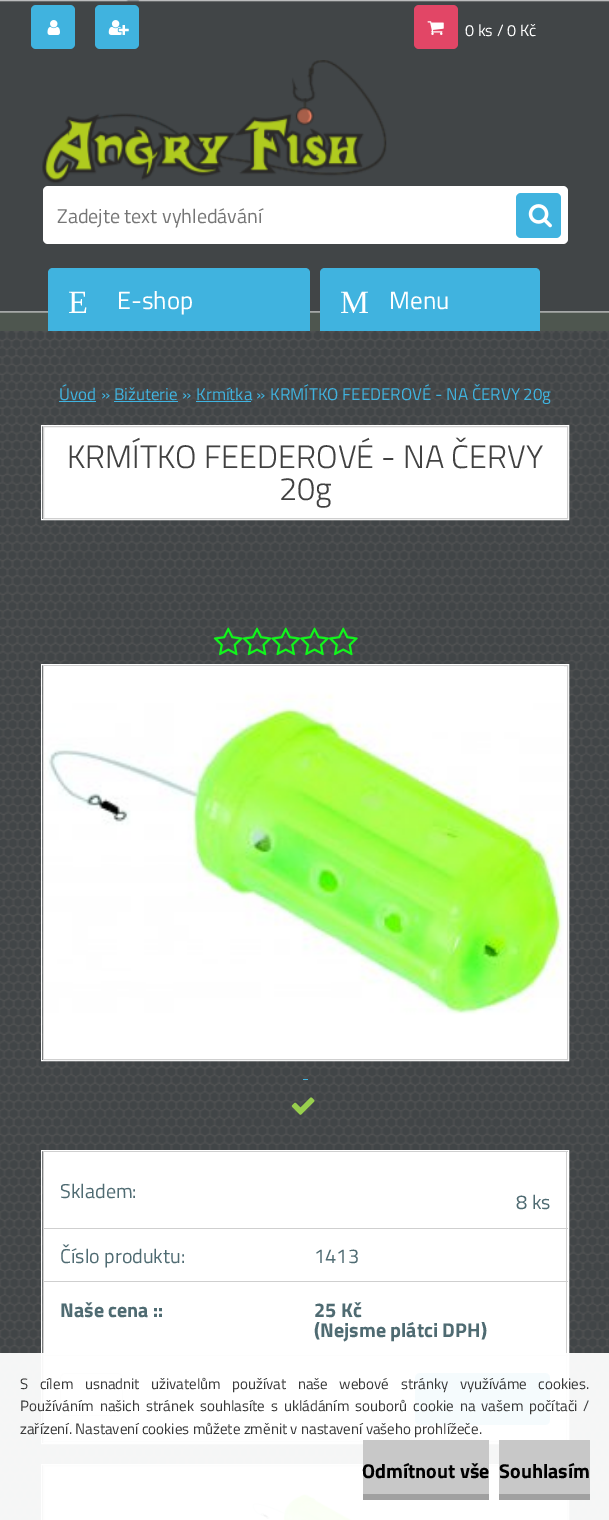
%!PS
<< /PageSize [609 1520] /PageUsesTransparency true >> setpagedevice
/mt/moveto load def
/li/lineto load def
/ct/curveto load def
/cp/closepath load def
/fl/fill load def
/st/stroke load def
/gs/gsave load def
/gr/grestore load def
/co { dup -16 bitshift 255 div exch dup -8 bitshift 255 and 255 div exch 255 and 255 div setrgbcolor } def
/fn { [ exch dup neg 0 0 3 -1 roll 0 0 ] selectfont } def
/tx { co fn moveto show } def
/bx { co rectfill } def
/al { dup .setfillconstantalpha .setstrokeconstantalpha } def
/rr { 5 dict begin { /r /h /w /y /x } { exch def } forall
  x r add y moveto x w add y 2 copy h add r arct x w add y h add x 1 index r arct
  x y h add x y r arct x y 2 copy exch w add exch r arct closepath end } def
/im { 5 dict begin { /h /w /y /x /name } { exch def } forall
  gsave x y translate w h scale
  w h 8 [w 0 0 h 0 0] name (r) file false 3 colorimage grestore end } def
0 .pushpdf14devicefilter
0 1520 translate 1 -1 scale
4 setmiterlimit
0 0 609 1520 16#FFFFFF bx
(media/1.raw) 0 331 609 1189 im
0 312 609 19 16#4E564F bx
(media/13.raw) 0 0 609 313 im
16#40B3DF co
31 5 44 44 5 rr fl
(media/2.raw) 47 20 13 15 im
95 5 44 44 5 rr fl
(media/3.raw) 108 20 21 15 im
16#E24666 co
414 5 44 44 5 rr fl
(media/4.raw) 427 21 17 14 im
16#40B3DF co
53 268 mt 305 268 li 308 268 310 270 310 273 ct 310 331 li 48 331 li 48 273 li 48 270 50 268 53 268 ct cp fl
325 268 mt 535 268 li 538 268 540 270 540 273 ct 540 331 li 320 331 li 320 273 li 320 270 322 268 325 268 ct cp fl
59 401 37 1 16#40B3DF bx
114 401 64 1 16#40B3DF bx
196 401 55 1 16#40B3DF bx
16#FFFFFF co
41.5 425.5 527 94 rectstroke
43.5 426.5 mt 567.5 426.5 li 567.5 518.5 li 43.5 518.5 li cp gs fl gr
16#CFCFCF co
st
(media/5.raw) 213 627 30 29 im
(media/6.raw) 242 627 30 29 im
(media/7.raw) 271 627 30 29 im
(media/8.raw) 300 627 29 29 im
(media/9.raw) 329 627 29 29 im
16#FFFFFF co
41.5 664.5 527 396 rectstroke
43.5 665.5 mt 567.5 665.5 li 567.5 1059.5 li 43.5 1059.5 li cp gs fl gr
16#CFCFCF co
st
(media/10.raw) 43 666 521 393 im
303 1079 5 1 16#40B3DF bx
(media/11.raw) 291 1097 24 18 im
16#FFFFFF co
41.5 1150.5 527 293 rectstroke
44 1152 524 291 16#FFFFFF bx
43 1151 525 1 16#CFCFCF bx
566 1151 1 292 16#CFCFCF bx
43 1441 456 1 16#CFCFCF bx
43 1151 1 292 16#CFCFCF bx
43 1228 525 1 16#CFCFCF bx
43 1281 525 1 16#CFCFCF bx
43 1355 525 1 16#CFCFCF bx
16#DFDFDF co
60.5 1373.5 62 42 4.5 rr st
16#40B3DF co
415 1373 135 52 5 rr fl
16#FFFFFF co
41.5 1464.5 527 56 rectstroke
43.5 1465.5 mt 567.5 1465.5 li 567.5 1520.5 li 43.5 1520.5 li cp gs fl gr
16#CFCFCF co
st
(media/12.raw) 252 1491 106 29 im
(media/14.raw) 42 60 345 124 im
16#FFFFFF co
43 186 525 58 5 rr fl
16#40B3DF co
516 193 45 45 5 rr fl
(media/15.raw) 528 204 24 24 im
0.95 al
0 1353 609 167 16#FFFFFF bx
1 al
363 1440 126 54 16#C8C8C8 bx
363 1494 126 6 16#A0A0A0 bx
499 1440 91 54 16#C8C8C8 bx
499 1494 91 6 16#A0A0A0 bx
(0 ks / 0 Kč) 465 36 /TitilliumWeb-Regular 16.25 16#FFFFFF tx
(E) 68 313 /LiberationSerif-Regular 32.5 16#FFFFFF tx
(E-shop) 117 309 /TitilliumWeb-Regular 25 16#FFFFFF tx
(M) 340 313 /LiberationSerif-Regular 32.5 16#FFFFFF tx
(Menu) 389 309 /TitilliumWeb-Regular 25 16#FFFFFF tx
(Úvod) 59 400 /TitilliumWeb-Regular 17 16#40B3DF tx
(») 101 400 /TitilliumWeb-Regular 17 16#40B3DF tx
(Bižuterie) 114 400 /TitilliumWeb-Regular 17 16#40B3DF tx
(») 182 400 /TitilliumWeb-Regular 17 16#40B3DF tx
(Krmítka) 196 400 /TitilliumWeb-Regular 17 16#40B3DF tx
(») 256 400 /TitilliumWeb-Regular 17 16#40B3DF tx
(KRMÍTKO FEEDEROVÉ - NA ČERVY 20g) 270 400 /TitilliumWeb-Regular 17 16#40B3DF tx
(KRMÍTKO FEEDEROVÉ - NA ČERVY) 67 468 /TitilliumWeb-Light 32.5 16#414141 tx
(20g) 279 500 /TitilliumWeb-Light 32.5 16#414141 tx
(Skladem:) 60 1198 /TitilliumWeb-Regular 20 16#4F6B72 tx
(8 ks) 516 1209 /TitilliumWeb-Regular 20 16#4F6B72 tx
(Číslo produktu:) 60 1263 /TitilliumWeb-Regular 20 16#4F6B72 tx
(1413) 314 1263 /TitilliumWeb-Regular 20 16#4F6B72 tx
(Naše cena ::) 60 1317 /TitilliumWeb-Bold 20 16#4F6B72 tx
(25 Kč) 314 1317 /TitilliumWeb-Bold 20 16#4F6B72 tx
(\(Nejsme plátci DPH\)) 314 1337 /TitilliumWeb-Bold 20 16#4F6B72 tx
(Zadejte text vyhledávání) 57 223 /TitilliumWeb-Regular 20 16#757575 tx
/TitilliumWeb-Regular 15 fn
16#383838 co
20 1389 mt 8.25 0 32 (S cílem usnadnit uživatelům používat naše webové stránky využíváme cookies.) widthshow
20 1411 mt 2.75 0 32 (Používáním našich stránek souhlasíte s ukládáním souborů cookie na vašem počítači /) widthshow
(zařízení. Nastavení cookies můžete změnit v nastavení vašeho prohlížeče.) 20 1434 /TitilliumWeb-Regular 15 16#383838 tx
(Odmítnout vše) 362 1478 /TitilliumWeb-Bold 20 16#000000 tx
(Souhlasím) 499 1478 /TitilliumWeb-Bold 20 16#000000 tx
.poppdf14devicefilter showpage
